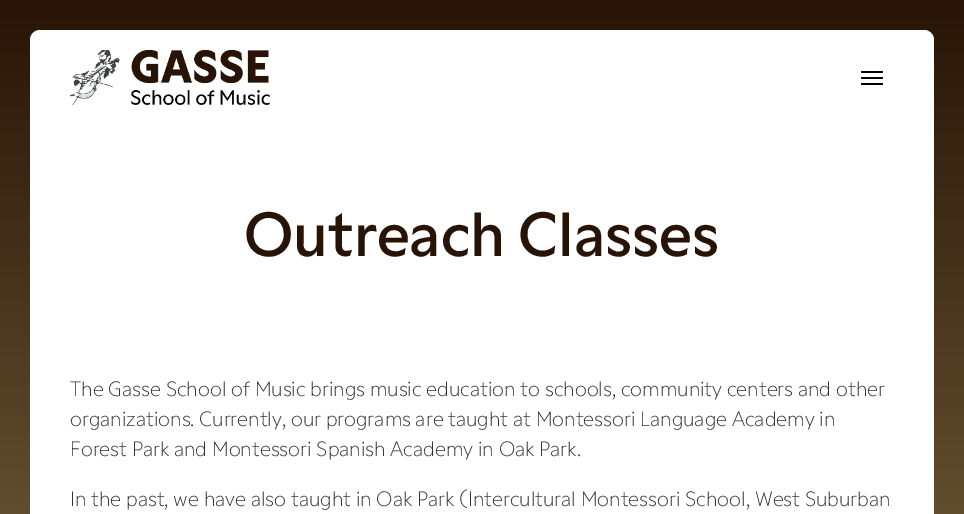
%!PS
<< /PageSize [964 514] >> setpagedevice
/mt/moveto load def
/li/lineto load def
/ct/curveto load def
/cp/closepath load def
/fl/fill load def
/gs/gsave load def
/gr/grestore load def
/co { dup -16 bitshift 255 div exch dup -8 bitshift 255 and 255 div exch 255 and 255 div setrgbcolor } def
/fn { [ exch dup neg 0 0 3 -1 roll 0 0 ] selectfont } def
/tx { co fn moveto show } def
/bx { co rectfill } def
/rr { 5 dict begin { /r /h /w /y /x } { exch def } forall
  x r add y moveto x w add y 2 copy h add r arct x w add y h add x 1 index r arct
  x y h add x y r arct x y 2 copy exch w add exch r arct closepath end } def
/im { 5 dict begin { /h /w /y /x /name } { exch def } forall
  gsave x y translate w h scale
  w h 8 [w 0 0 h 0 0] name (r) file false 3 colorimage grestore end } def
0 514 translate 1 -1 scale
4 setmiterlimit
0 0 964 514 16#FFFFFF bx
gs 0 0 mt 964 0 li 964 514 li 0 514 li cp clip newpath
<< /ShadingType 2 /ColorSpace /DeviceRGB /Coords [482 0 482 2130] /Extend [true true] /Function << /FunctionType 3 /Domain [0 1] /Functions [<< /FunctionType 2 /Domain [0 1] /C0 [.153 .078 .024] /C1 [.627 .549 .345] /N 1 >> << /FunctionType 2 /Domain [0 1] /C0 [.627 .549 .345] /C1 [.353 .267 .102] /N 1 >>] /Bounds [.5] /Encode [0 1 0 1] >> >> shfill gr
40 30 mt 924 30 li 929.5 30 934 34.5 934 40 ct 934 126 li 30 126 li 30 40 li 30 34.5 34.5 30 40 30 ct cp fl
(media/1.raw) 70 50 200 55 im
16#000000 co
861 71 22 2 1 rr fl
861 77 22 2 1 rr fl
861 83 22 2 1 rr fl
30 126 904 388 16#FFFFFF bx
(Outreach Classes) 244 256 /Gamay-Regular 60 16#271406 tx
(The Gasse School of Music brings music education to schools, community centers and other) 70 396 /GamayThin-Thin 20 16#333333 tx
(organizations. Currently, our programs are taught at Montessori Language Academy in) 70 426 /GamayThin-Thin 20 16#333333 tx
(Forest Park and Montessori Spanish Academy in Oak Park.) 70 456 /GamayThin-Thin 20 16#333333 tx
(In the past, we have also taught in Oak Park \(Intercultural Montessori School, West Suburban) 70 506 /GamayThin-Thin 20 16#333333 tx
showpage
